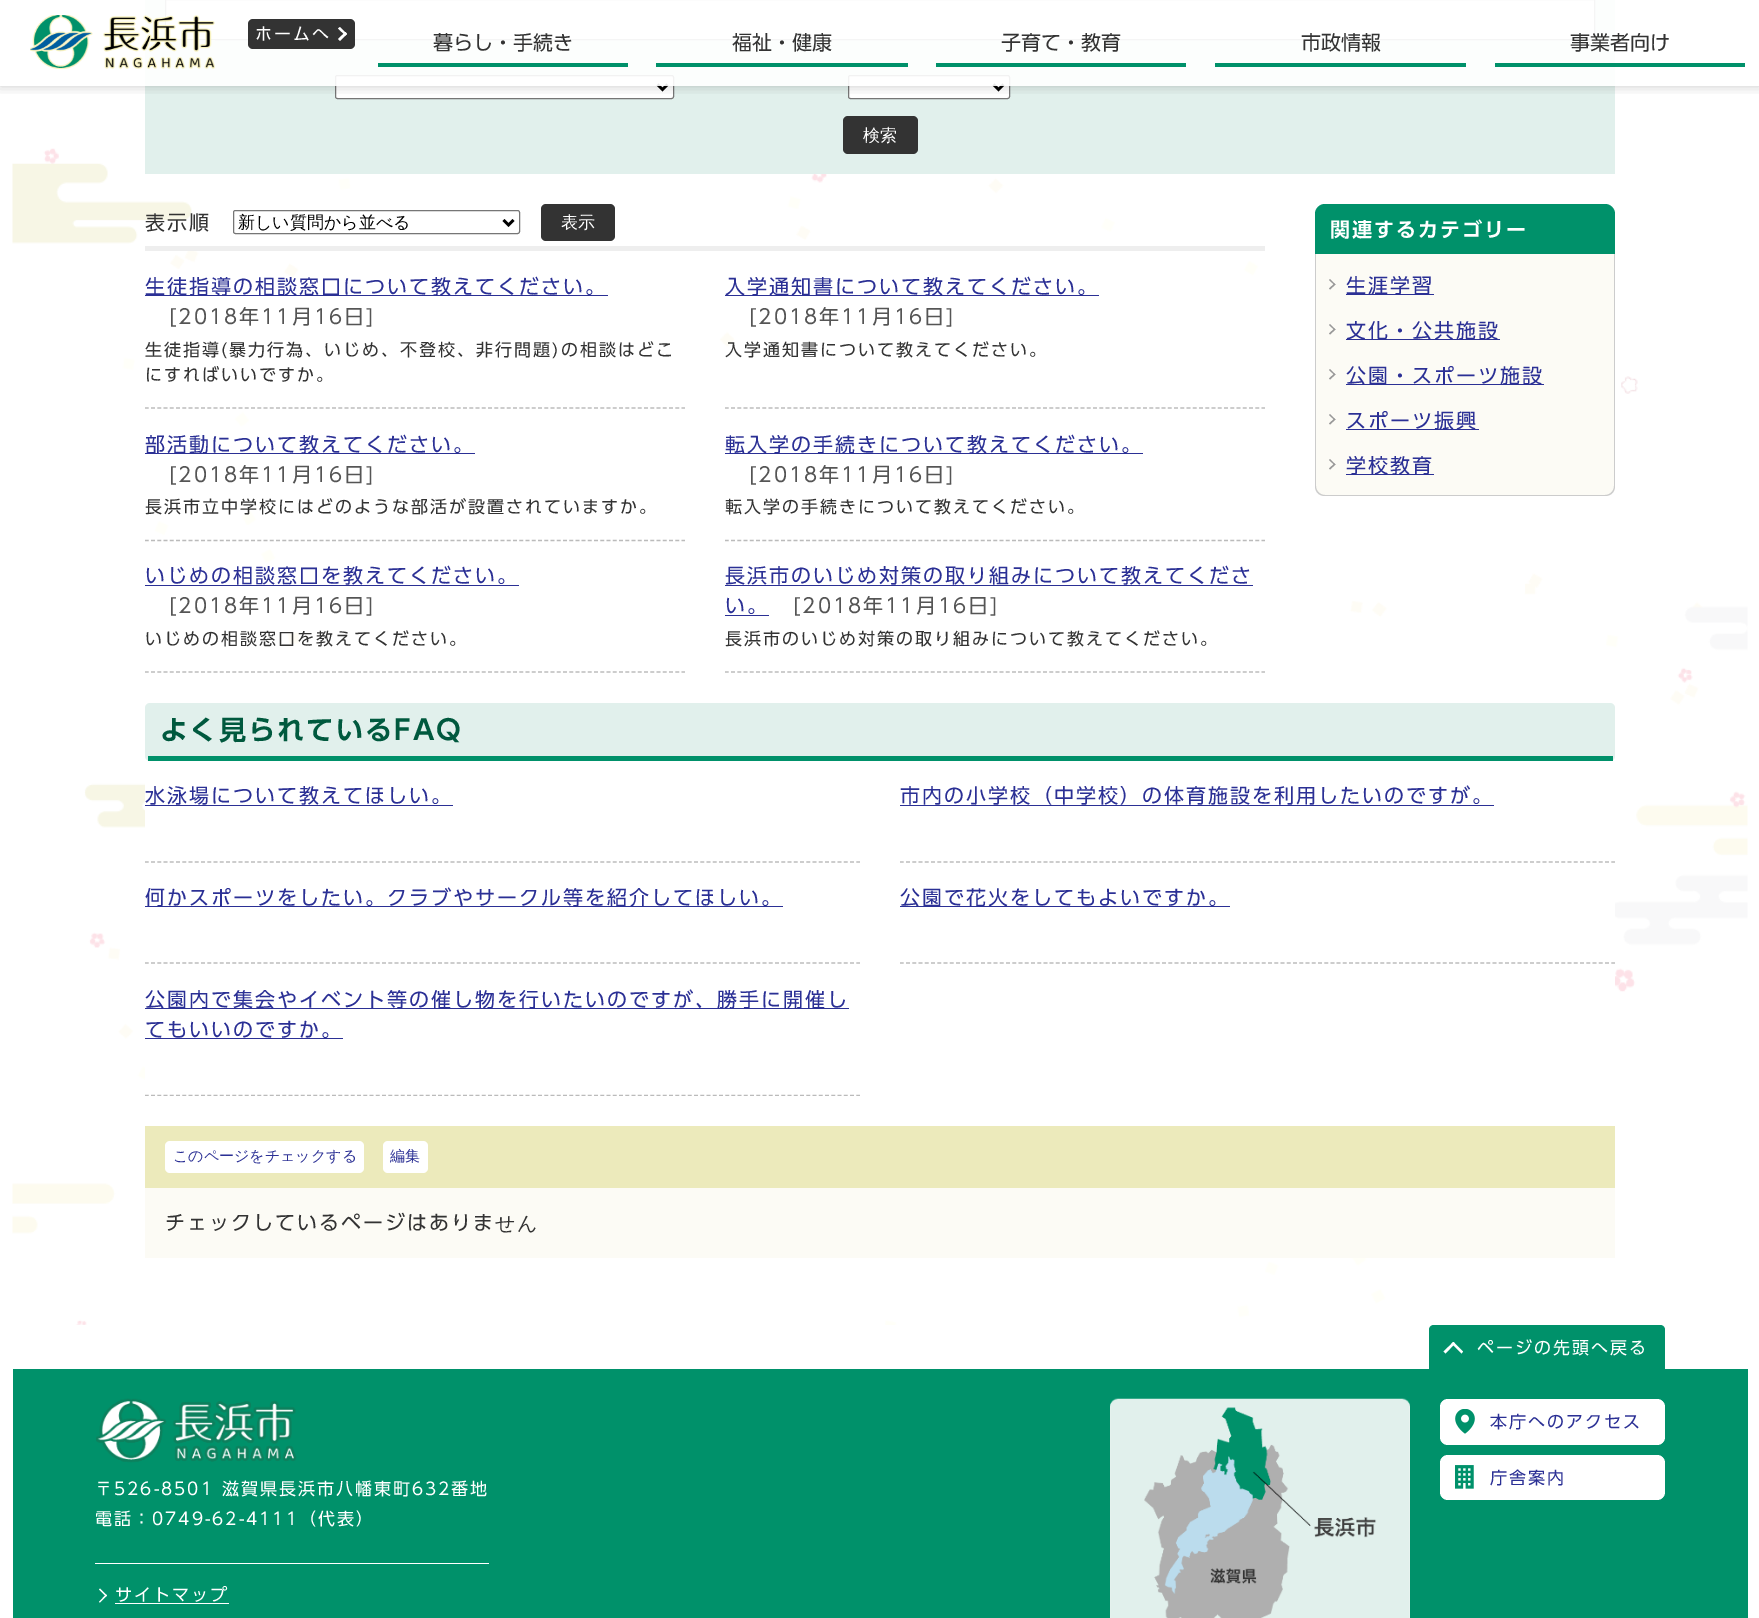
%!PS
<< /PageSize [1759 1618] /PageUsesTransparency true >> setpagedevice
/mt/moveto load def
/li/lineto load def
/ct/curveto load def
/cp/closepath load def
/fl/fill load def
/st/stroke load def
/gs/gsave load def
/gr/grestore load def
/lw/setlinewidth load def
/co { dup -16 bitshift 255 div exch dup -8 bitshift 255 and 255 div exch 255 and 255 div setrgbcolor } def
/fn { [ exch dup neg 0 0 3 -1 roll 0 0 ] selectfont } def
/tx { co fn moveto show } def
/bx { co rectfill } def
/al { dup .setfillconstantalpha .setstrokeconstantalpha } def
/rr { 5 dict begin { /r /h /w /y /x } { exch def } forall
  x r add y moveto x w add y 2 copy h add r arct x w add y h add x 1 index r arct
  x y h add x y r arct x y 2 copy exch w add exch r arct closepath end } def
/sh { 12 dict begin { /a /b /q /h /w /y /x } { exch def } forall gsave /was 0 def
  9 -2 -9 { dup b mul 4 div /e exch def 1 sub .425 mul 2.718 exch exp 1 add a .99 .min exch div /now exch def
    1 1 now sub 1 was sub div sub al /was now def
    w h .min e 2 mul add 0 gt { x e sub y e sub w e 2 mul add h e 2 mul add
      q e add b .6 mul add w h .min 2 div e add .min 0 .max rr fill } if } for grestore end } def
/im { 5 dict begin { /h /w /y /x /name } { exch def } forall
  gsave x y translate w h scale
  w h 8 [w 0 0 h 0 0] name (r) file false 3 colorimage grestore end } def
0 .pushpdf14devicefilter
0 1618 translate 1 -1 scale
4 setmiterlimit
0 0 1759 1618 16#FFFFFF bx
(media/2.raw) 12 148 1736 1177 im
145 0 1470 174 16#E1F0EC bx
16#FFFFFF co
165.5 -.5 mt 1594.5 -.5 li 1594.5 39.5 li 165.5 39.5 li cp gs fl gr
16#999999 co
st
16#FFFFFF co
335.5 75.5 338 23 2 rr gs fl gr
16#767676 co
st
16#000000 co
2.5 lw
657.5 84.5 mt 662.5 89.5 li 667.5 84.5 li st
16#FFFFFF co
848.5 75.5 161 23 2 rr gs fl gr
16#767676 co
1 lw
st
16#000000 co
2.5 lw
993.5 84.5 mt 998.5 89.5 li 1003.5 84.5 li st
gs
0 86 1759 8 rectclip
0 0 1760 86 0 6 .2 sh
gr
0.9 al
145 0 1470 86 16#FFFFFF bx
1 al
(media/1.raw) 30 15 185 55 im
16#333333 co
248 19 107 30 5 rr fl
16#FFFFFF co
338 28.5 mt 340 27 li 347 34 li 345.5 35.5 li cp fl
338 39 mt 345.5 32 li 347 34 li 340 41 li cp fl
378 63 250 4 16#00916A bx
656 63 252 4 16#00916A bx
936 63 250 4 16#00916A bx
1215 63 251 4 16#00916A bx
1495 63 250 4 16#00916A bx
16#333333 co
843 116 75 38 5 rr fl
145 246 1120 5 16#EEEEEE bx
16#767676 co
1 lw
233.5 210.5 286 23 2 rr st
16#000000 co
2.5 lw
503.5 220 mt 508.5 225 li 513.5 220 li st
16#333333 co
541 204 74 37 5 rr fl
16#BBBBBB co
1.2 lw
[3.75 2.49] 0 setdash
145 408 mt 685 408 li st
145 295 463 1 16#2B3095 bx
16#BBBBBB co
725 408 mt 1265 408 li st
725 295 374 1 16#2B3095 bx
16#BBBBBB co
145 540.5 mt 685 540.5 li st
145 453 330 1 16#2B3095 bx
16#BBBBBB co
725 540.5 mt 1265 540.5 li st
725 453 418 1 16#2B3095 bx
16#BBBBBB co
145 672 mt 685 672 li st
145 585 374 1 16#2B3095 bx
16#BBBBBB co
725 672 mt 1265 672 li st
725 585 528 1 16#2B3095 bx
725 615 44 1 16#2B3095 bx
16#00916A co
1325 204 mt 1605 204 li 1610.5 204 1615 208.5 1615 214 ct 1615 254 li 1315 254 li 1315 214 li 1315 208.5 1319.5 204 1325 204 ct cp fl
16#FCFBF5 co
1315 254 mt 1615 254 li 1615 486 li 1615 491.5 1610.5 496 1605 496 ct 1325 496 li 1319.5 496 1315 491.5 1315 486 ct cp fl
16#CCCCCC co
1315 254 mt 1615 254 li 1615 486 li 1615 492 1611 496 1605 496 ct 1325 496 li 1319 496 1315 492 1315 486 ct cp 1316 254 mt 1614 254 li 1614 486 li 1614 491 1610 495 1605 495 ct 1325 495 li 1320 495 1316 491 1316 486 ct cp eofill
16#999999 co
1329 280 mt 1330 279 li 1335.5 284.5 li 1334.5 285 li cp fl
1329 288.5 mt 1334.5 283.5 li 1335.5 284.5 li 1330 289.5 li cp fl
1346 294 88 1 16#2B3095 bx
16#999999 co
1329 325 mt 1330 324 li 1335.5 329.5 li 1334.5 330 li cp fl
1329 333.5 mt 1334.5 328.5 li 1335.5 329.5 li 1330 334.5 li cp fl
1346 339 154 1 16#2B3095 bx
16#999999 co
1329 370 mt 1330 369 li 1335.5 374.5 li 1334.5 375 li cp fl
1329 378.5 mt 1334.5 373.5 li 1335.5 374.5 li 1330 379.5 li cp fl
1346 384 198 1 16#2B3095 bx
16#999999 co
1329 415 mt 1330 414 li 1335.5 419.5 li 1334.5 420 li cp fl
1329 423.5 mt 1334.5 418.5 li 1335.5 419.5 li 1330 424.5 li cp fl
1346 429 133 1 16#2B3095 bx
16#999999 co
1329 460 mt 1330 459 li 1335.5 464.5 li 1334.5 465 li cp fl
1329 468.5 mt 1334.5 463.5 li 1335.5 464.5 li 1330 469.5 li cp fl
1346 474 88 1 16#2B3095 bx
145 752 1470 329 16#FFFFFF bx
16#E1F0EC co
145 703 1470 58 5 rr fl
148 756 1465 5 16#00916A bx
16#BBBBBB co
145 862 mt 860 862 li st
145 805 308 1 16#2B3095 bx
16#BBBBBB co
900 862 mt 1615 862 li st
900 805 594 1 16#2B3095 bx
16#BBBBBB co
145 963 mt 860 963 li st
145 906 638 1 16#2B3095 bx
16#BBBBBB co
900 963 mt 1615 963 li st
900 906 330 1 16#2B3095 bx
gs
130 0 1500 1096 rectclip
16#BBBBBB co
145 1095.5 mt 860 1095.5 li st
gr
145 1008 704 1 16#2B3095 bx
145 1038 198 1 16#2B3095 bx
145 1126 1470 62 16#ECEABB bx
16#FFFFFF co
165 1141 199 32 5 rr fl
383 1141 45 32 5 rr fl
145 1188 1470 70 16#FCFBF5 bx
16#00916A co
1434 1325 mt 1660 1325 li 1663 1325 1665 1327 1665 1330 ct 1665 1369 li 1429 1369 li 1429 1330 li 1429 1327 1431 1325 1434 1325 ct cp fl
16#FFFFFF co
1445.5 1353.5 mt 1443.5 1351.5 li 1453.5 1342 li 1455 1343.5 li cp fl
1461.5 1353.5 mt 1451.5 1343.5 li 1453.5 1342 li 1463 1351.5 li cp fl
13 1369 1735 249 16#00916A bx
(media/3.raw) 1110 1398 300 220 im
16#FFFFFF co
1440 1399 225 46 8 rr fl
(media/4.raw) 1455 1409 20 25 im
1440 1455 225 45 8 rr fl
(media/5.raw) 1455 1465 19 24 im
(media/6.raw) 96 1398 201 65 im
95 1563 394 1 16#FFFFFF bx
99 1589.5 mt 100 1588.5 li 107 1595.5 li 106 1596.5 li cp fl
99 1602 mt 106 1594.5 li 107 1595.5 li 100 1602.5 li cp fl
115 1603 114 1 16#FFFFFF bx
/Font-Regular 17 fn
255 40 mt 2 0 (ホームへ) ashow
(暮らし・手続き) 433 50 /Font-Regular 20 16#333333 tx
(福祉・健康) 732 50 /Font-Regular 20 16#333333 tx
(子育て・教育) 1001 50 /Font-Regular 20 16#333333 tx
(市政情報) 1301 50 /Font-Regular 20 16#333333 tx
(事業者向け) 1570 50 /Font-Regular 20 16#333333 tx
(検索) 863 141 /WenQuanYiZenHei-Medium 17 16#FFFFFF tx
/Font-Regular 20 fn
16#333333 co
145 230 mt 2 0 (表示順) ashow
(新しい質問から並べる) 238 228 /WenQuanYiZenHei-Medium 17 16#000000 tx
(表示) 561 228 /WenQuanYiZenHei-Medium 17 16#FFFFFF tx
/Font-Regular 20 fn
16#2B3095 co
145 294 mt 2 0 (生徒指導の相談窓口について教えてください。) ashow
16#555555 co
169 324 mt 2 0 ([2018年11月16日]) ashow
/Font-Regular 17 fn
16#333333 co
145 356 mt 2 0 (生徒指導\(暴力行為、いじめ、不登校、非行問題\)の相談はどこ) ashow
145 381 mt 2 0 (にすればいいですか。) ashow
/Font-Regular 20 fn
16#2B3095 co
725 294 mt 2 0 (入学通知書について教えてください。) ashow
16#555555 co
749 324 mt 2 0 ([2018年11月16日]) ashow
/Font-Regular 17 fn
16#333333 co
725 356 mt 2 0 (入学通知書について教えてください。) ashow
/Font-Regular 20 fn
16#2B3095 co
145 452 mt 2 0 (部活動について教えてください。) ashow
16#555555 co
169 482 mt 2 0 ([2018年11月16日]) ashow
/Font-Regular 17 fn
16#333333 co
145 513 mt 2 0 (長浜市立中学校にはどのような部活が設置されていますか。) ashow
/Font-Regular 20 fn
16#2B3095 co
725 452 mt 2 0 (転入学の手続きについて教えてください。) ashow
16#555555 co
749 482 mt 2 0 ([2018年11月16日]) ashow
/Font-Regular 17 fn
16#333333 co
725 513 mt 2 0 (転入学の手続きについて教えてください。) ashow
/Font-Regular 20 fn
16#2B3095 co
145 583 mt 2 0 (いじめの相談窓口を教えてください。) ashow
16#555555 co
169 613 mt 2 0 ([2018年11月16日]) ashow
/Font-Regular 17 fn
16#333333 co
145 645 mt 2 0 (いじめの相談窓口を教えてください。) ashow
/Font-Regular 20 fn
16#2B3095 co
725 583 mt 2 0 (長浜市のいじめ対策の取り組みについて教えてくださ) ashow
725 613 mt 2 0 (い。) ashow
16#555555 co
793 613 mt 2 0 ([2018年11月16日]) ashow
/Font-Regular 17 fn
16#333333 co
725 645 mt 2 0 (長浜市のいじめ対策の取り組みについて教えてください。) ashow
/Font-SemiBold 20 fn
16#FFFFFF co
1330 237 mt 2 0 (関連するカテゴリー) ashow
/Font-Regular 20 fn
16#2B3095 co
1346 293 mt 2 0 (生涯学習) ashow
1346 338 mt 2 0 (文化・公共施設) ashow
1346 383 mt 2 0 (公園・スポーツ施設) ashow
1346 428 mt 2 0 (スポーツ振興) ashow
1346 473 mt 2 0 (学校教育) ashow
/Font-SemiBold 27.25 fn
16#00593E co
160 740 mt 2 0 (よく見られているFAQ) ashow
/Font-Regular 20 fn
16#2B3095 co
145 803 mt 2 0 (水泳場について教えてほしい。) ashow
900 803 mt 2 0 (市内の小学校（中学校）の体育施設を利用したいのですが。) ashow
145 905 mt 2 0 (何かスポーツをしたい。クラブやサークル等を紹介してほしい。) ashow
900 905 mt 2 0 (公園で花火をしてもよいですか。) ashow
145 1007 mt 2 0 (公園内で集会やイベント等の催し物を行いたいのですが、勝手に開催し) ashow
145 1037 mt 2 0 (てもいいのですか。) ashow
(このページをチェックする) 173 1161 /WenQuanYiZenHei-Medium 15 16#2B3095 tx
(編集) 390 1161 /WenQuanYiZenHei-Medium 15 16#2B3095 tx
/Font-Regular 20 fn
16#333333 co
165 1230 mt 2 0 (チェックしているページはありま) ashow
/WenQuanYiZenHei-Medium 20 fn
495 1230 mt 2 0 (せん) ashow
/Font-Regular 17 fn
16#FFFFFF co
1477 1354 mt 2 0 (ページの先頭へ戻る) ashow
16#2B3095 co
1490 1428 mt 2 0 (本庁へのアクセス) ashow
1490 1484 mt 2 0 (庁舎案内) ashow
16#FFFFFF co
95 1495 mt 2 0 (〒526-8501 滋賀県長浜市八幡東町632番地) ashow
95 1525 mt 2 0 (電話：0749-62-4111（代表）) ashow
115 1601 mt 2 0 (サイトマップ) ashow
.poppdf14devicefilter showpage
